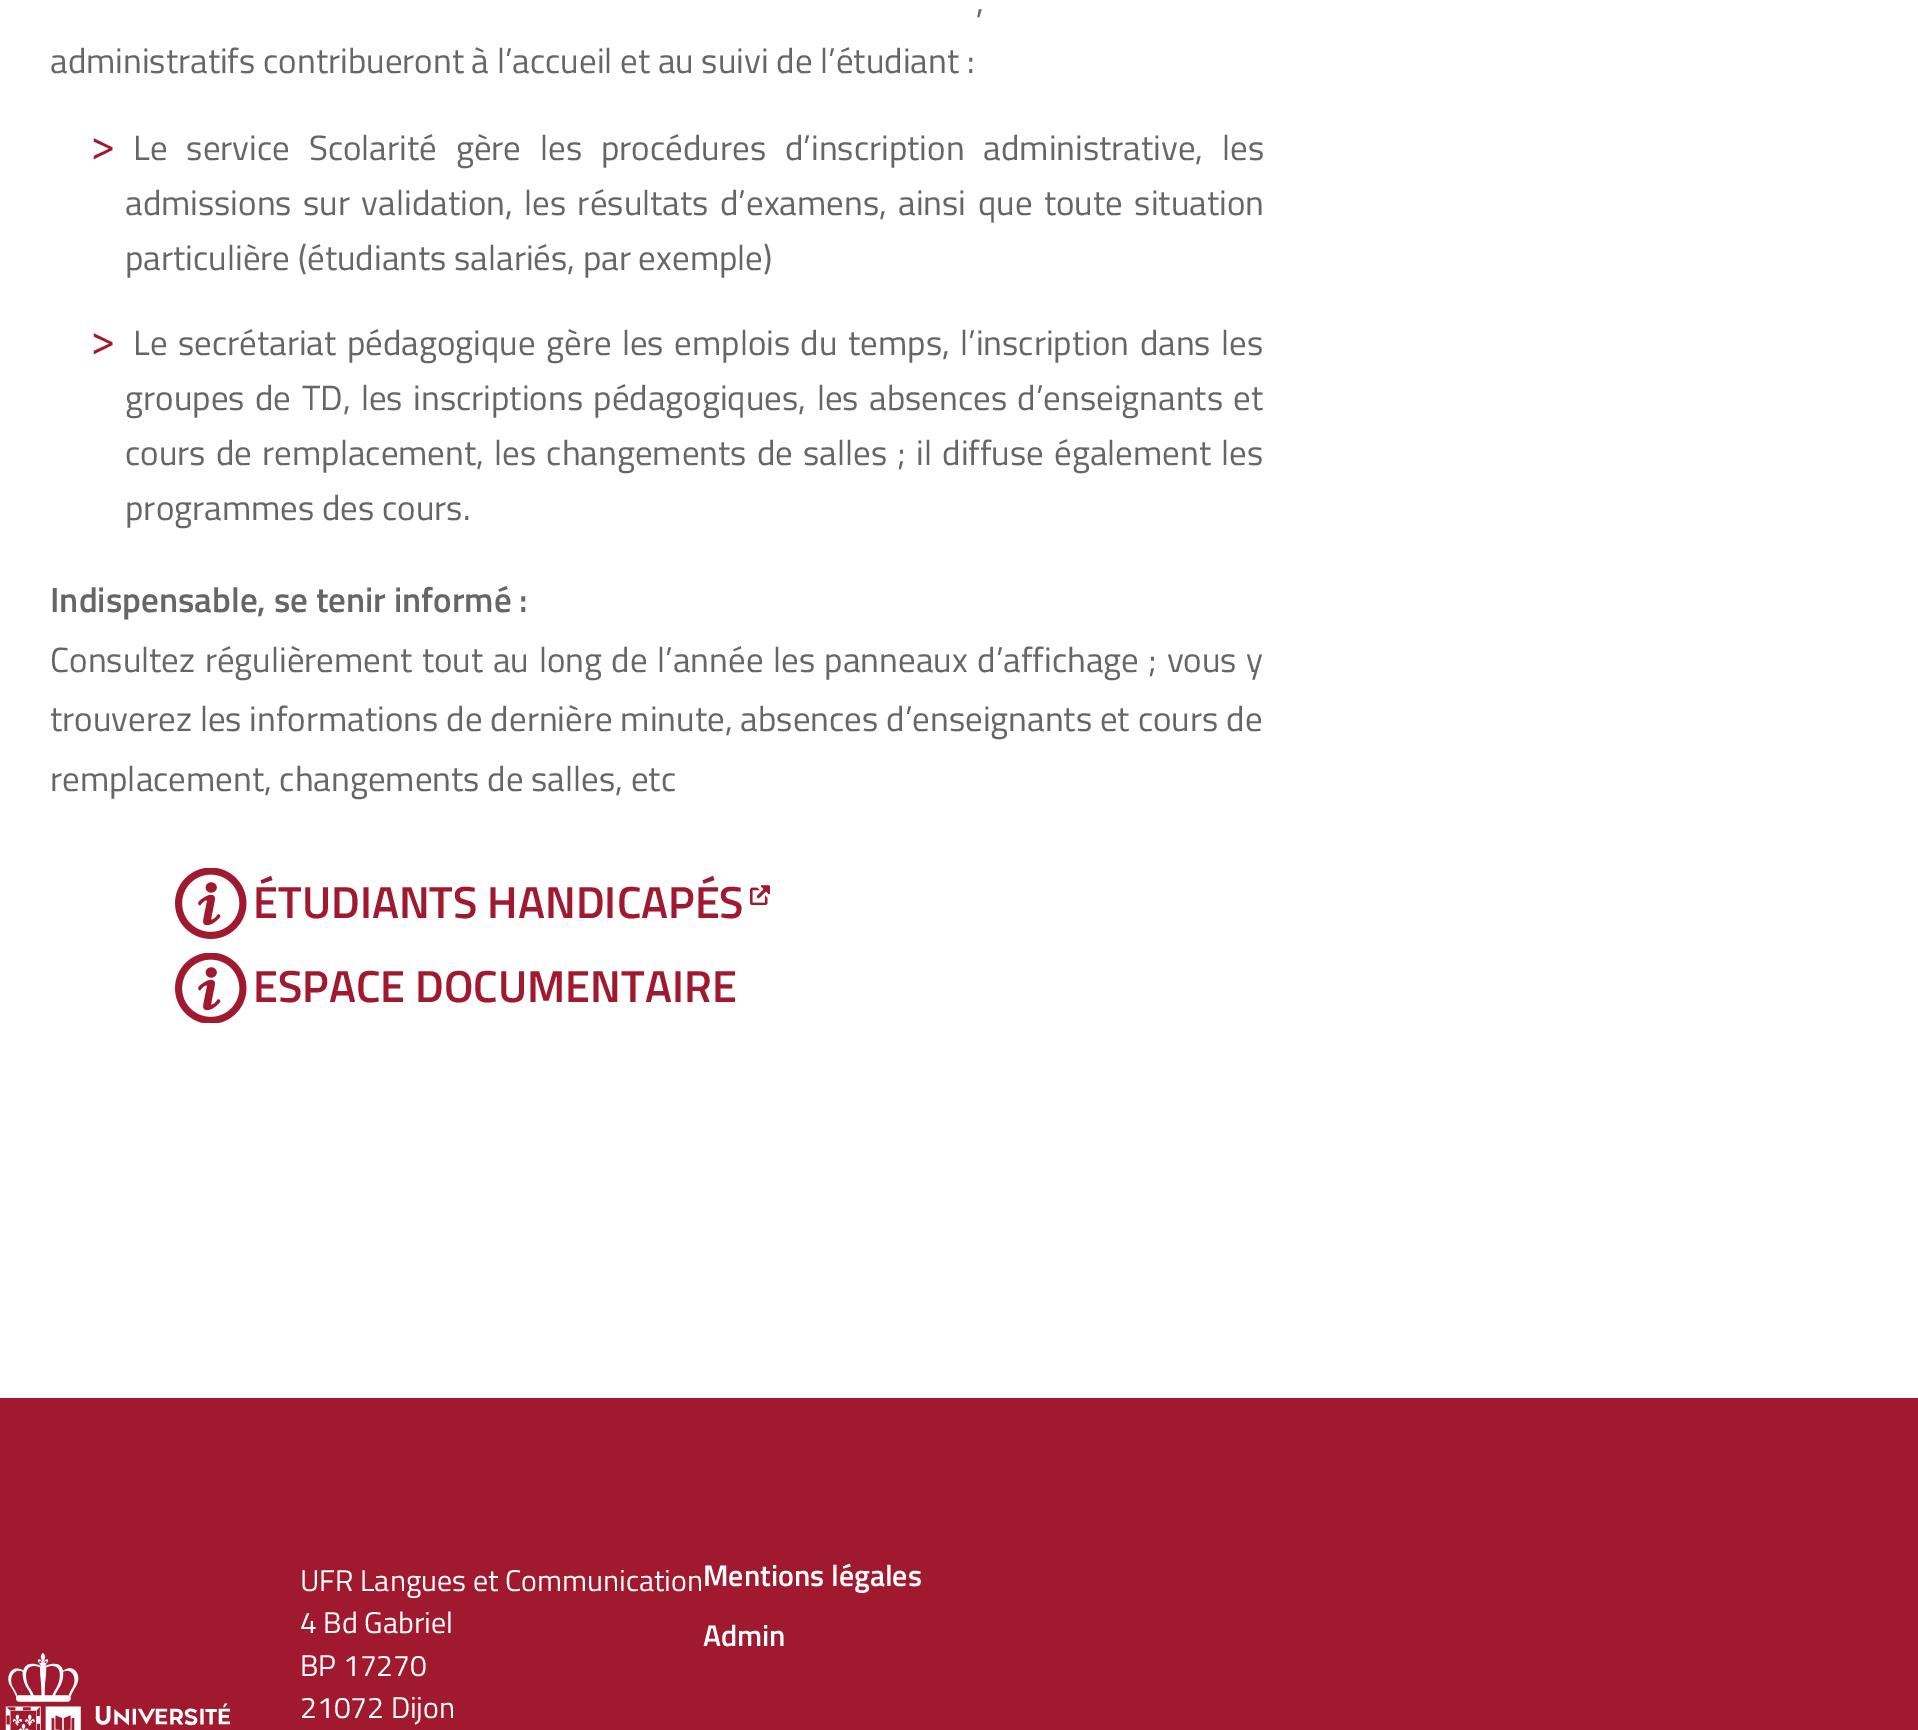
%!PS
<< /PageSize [1918 1730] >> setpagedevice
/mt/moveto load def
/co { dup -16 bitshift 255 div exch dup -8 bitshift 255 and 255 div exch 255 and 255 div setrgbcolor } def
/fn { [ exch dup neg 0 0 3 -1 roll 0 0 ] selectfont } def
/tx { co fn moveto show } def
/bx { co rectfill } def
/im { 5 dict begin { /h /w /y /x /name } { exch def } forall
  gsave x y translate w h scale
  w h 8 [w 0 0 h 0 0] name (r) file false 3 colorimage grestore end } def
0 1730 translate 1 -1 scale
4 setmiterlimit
0 0 1918 1730 16#FFFFFF bx
(media/1.raw) 175 868 72 71 im
(media/2.raw) 750 885 20 20 im
(media/3.raw) 175 953 72 70 im
0 1398 1918 332 16#A1192E bx
(media/4.raw) 5 1652 226 78 im
(,) 976 13 /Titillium-Regular 35 16#666666 tx
(administratifs contribueront à l’accueil et au suivi de l’étudiant :) 50 73 /Titillium-Regular 35 16#666666 tx
(>) 90 160 /Titillium-Regular 45 16#A1192E tx
/Titillium-Regular 35 fn
16#666666 co
133 160 mt 11.25 0 32 (Le service Scolarité gère les procédures d’inscription administrative, les) widthshow
125 215 mt 3.75 0 32 (admissions sur validation, les résultats d’examens, ainsi que toute situation) widthshow
(particulière \(étudiants salariés, par exemple\)) 125 270 /Titillium-Regular 35 16#666666 tx
(>) 90 355 /Titillium-Regular 45 16#A1192E tx
/Titillium-Regular 35 fn
16#666666 co
133 355 mt 2.75 0 32 (Le secrétariat pédagogique gère les emplois du temps, l’inscription dans les) widthshow
125 410 mt 2.75 0 32 (groupes de TD, les inscriptions pédagogiques, les absences d’enseignants et) widthshow
125 465 mt 2.5 0 32 (cours de remplacement, les changements de salles ; il diffuse également les) widthshow
(programmes des cours.) 125 520 /Titillium-Regular 35 16#666666 tx
(Indispensable, se tenir informé :) 50 612 /Titillium-SemiBold 35 16#666666 tx
/Titillium-Regular 35 fn
50 672 mt 1.9 0 32 (Consultez régulièrement tout au long de l’année les panneaux d’affichage ; vous y) widthshow
50 731 mt .25 0 32 (trouverez les informations de dernière minute, absences d’enseignants et cours de) widthshow
(remplacement, changements de salles, etc) 50 791 /Titillium-Regular 35 16#666666 tx
(ÉTUDIANTS HANDICAPÉS) 253 918 /Titillium-SemiBold 45 16#A1192E tx
(ESPACE DOCUMENTAIRE) 253 1002 /Titillium-SemiBold 45 16#A1192E tx
(UFR Langues et Communication) 300 1591 /Titillium-Regular 30 16#FFFFFF tx
(4 Bd Gabriel) 300 1633 /Titillium-Regular 30 16#FFFFFF tx
(BP 17270) 300 1676 /Titillium-Regular 30 16#FFFFFF tx
(21072 Dijon) 300 1718 /Titillium-Regular 30 16#FFFFFF tx
(Mentions légales) 703 1586 /Titillium-SemiBold 30 16#FFFFFF tx
(Admin) 703 1646 /Titillium-SemiBold 30 16#FFFFFF tx
showpage
